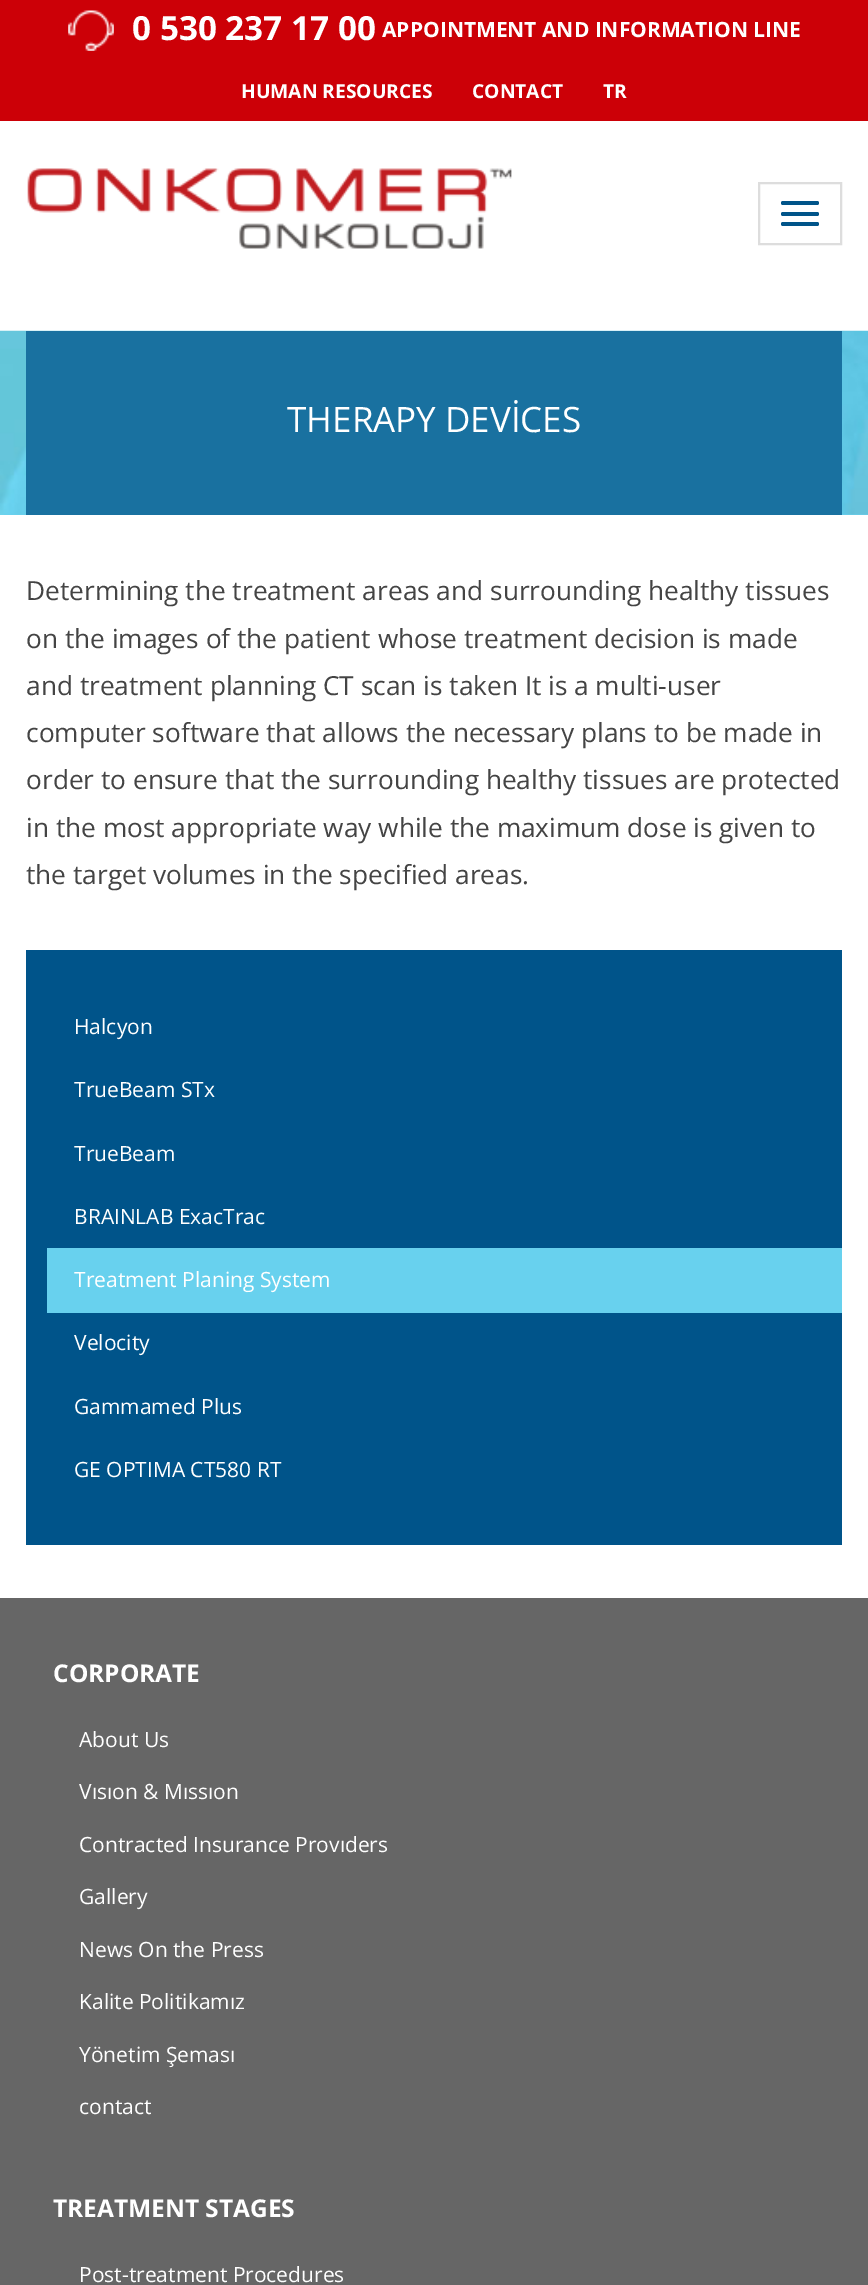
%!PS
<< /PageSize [868 2285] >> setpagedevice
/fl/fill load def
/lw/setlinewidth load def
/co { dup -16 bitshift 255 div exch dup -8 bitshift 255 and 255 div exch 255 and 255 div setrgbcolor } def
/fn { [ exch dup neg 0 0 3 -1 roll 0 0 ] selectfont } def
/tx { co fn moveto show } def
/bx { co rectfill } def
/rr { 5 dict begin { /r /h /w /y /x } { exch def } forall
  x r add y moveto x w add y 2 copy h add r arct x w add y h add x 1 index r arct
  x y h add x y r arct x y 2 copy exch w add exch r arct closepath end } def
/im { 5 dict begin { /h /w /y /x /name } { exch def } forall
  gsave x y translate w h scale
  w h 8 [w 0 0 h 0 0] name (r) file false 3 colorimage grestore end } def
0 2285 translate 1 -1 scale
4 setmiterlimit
0 0 868 2285 16#FFFFFF bx
0 0 868 121 16#CC0007 bx
(media/1.raw) 68 10 46 41 im
(media/2.raw) 27 168 485 81 im
16#DDDDDD co
2 lw
759 183 82 61 rectstroke
16#005489 co
781 201 38 4 2 rr fl
781 212 38 4 2 rr fl
781 222 38 4 2 rr fl
0 514 868 1 16#6BD2ED bx
(media/3.raw) 0 330 868 185 im
26 331 816 184 16#1971A0 bx
26 950 816 595 16#00548A bx
47 1248 795 65 16#68D1EE bx
0 1598 868 687 16#666666 bx
(0 530 237 17 00) 132 40 /OpenSans-Bold 33.25 16#FFFFFF tx
(APPOINTMENT AND INFORMATION LINE) 382 37 /OpenSans-Bold 21 16#FFFFFF tx
(HUMAN RESOURCES) 241 98 /OpenSans-Bold 19.25 16#FFFFFF tx
(CONTACT) 472 98 /OpenSans-Bold 19.25 16#FFFFFF tx
(TR) 603 98 /OpenSans-Bold 19.25 16#FFFFFF tx
(THERAPY DEVİCES) 287 432 /OpenSans-Regular 35 16#FFFFFF tx
(Determining the treatment areas and surrounding healthy tissues) 26 600 /OpenSans-Regular 26.25 16#444444 tx
(on the images of the patient whose treatment decision is made) 26 648 /OpenSans-Regular 26.25 16#444444 tx
(and treatment planning CT scan is taken It is a multi-user) 26 695 /OpenSans-Regular 26.25 16#444444 tx
(computer software that allows the necessary plans to be made in) 26 742 /OpenSans-Regular 26.25 16#444444 tx
(order to ensure that the surrounding healthy tissues are protected) 26 789 /OpenSans-Regular 26.25 16#444444 tx
(in the most appropriate way while the maximum dose is given to) 26 837 /OpenSans-Regular 26.25 16#444444 tx
(the target volumes in the specified areas.) 26 884 /OpenSans-Regular 26.25 16#444444 tx
(Halcyon) 74 1034 /OpenSans-Regular 21 16#FFFFFF tx
(TrueBeam STx) 74 1097 /OpenSans-Regular 21 16#FFFFFF tx
(TrueBeam) 74 1161 /OpenSans-Regular 21 16#FFFFFF tx
(BRAINLAB ExacTrac) 74 1224 /OpenSans-Regular 21 16#FFFFFF tx
(Treatment Planing System) 74 1287 /OpenSans-Regular 21 16#FFFFFF tx
(Velocity) 74 1350 /OpenSans-Regular 21 16#FFFFFF tx
(Gammamed Plus) 74 1414 /OpenSans-Regular 21 16#FFFFFF tx
(GE OPTIMA CT580 RT) 74 1477 /OpenSans-Regular 21 16#FFFFFF tx
(CORPORATE) 53 1682 /OpenSans-Bold 24.5 16#FFFFFF tx
(About Us) 79 1747 /OpenSans-Regular 21 16#FFFFFF tx
(Vısıon & Mıssıon) 79 1799 /OpenSans-Regular 21 16#FFFFFF tx
(Contracted Insurance Provıders) 79 1852 /OpenSans-Regular 21 16#FFFFFF tx
(Gallery) 79 1904 /OpenSans-Regular 21 16#FFFFFF tx
(News On the Press) 79 1957 /OpenSans-Regular 21 16#FFFFFF tx
(Kalite Politikamız) 79 2009 /OpenSans-Regular 21 16#FFFFFF tx
(Yönetim Şeması) 79 2062 /OpenSans-Regular 21 16#FFFFFF tx
(contact) 79 2114 /OpenSans-Regular 21 16#FFFFFF tx
(TREATMENT STAGES) 53 2217 /OpenSans-Bold 24.5 16#FFFFFF tx
(Post-treatment Procedures) 79 2282 /OpenSans-Regular 21 16#FFFFFF tx
showpage
